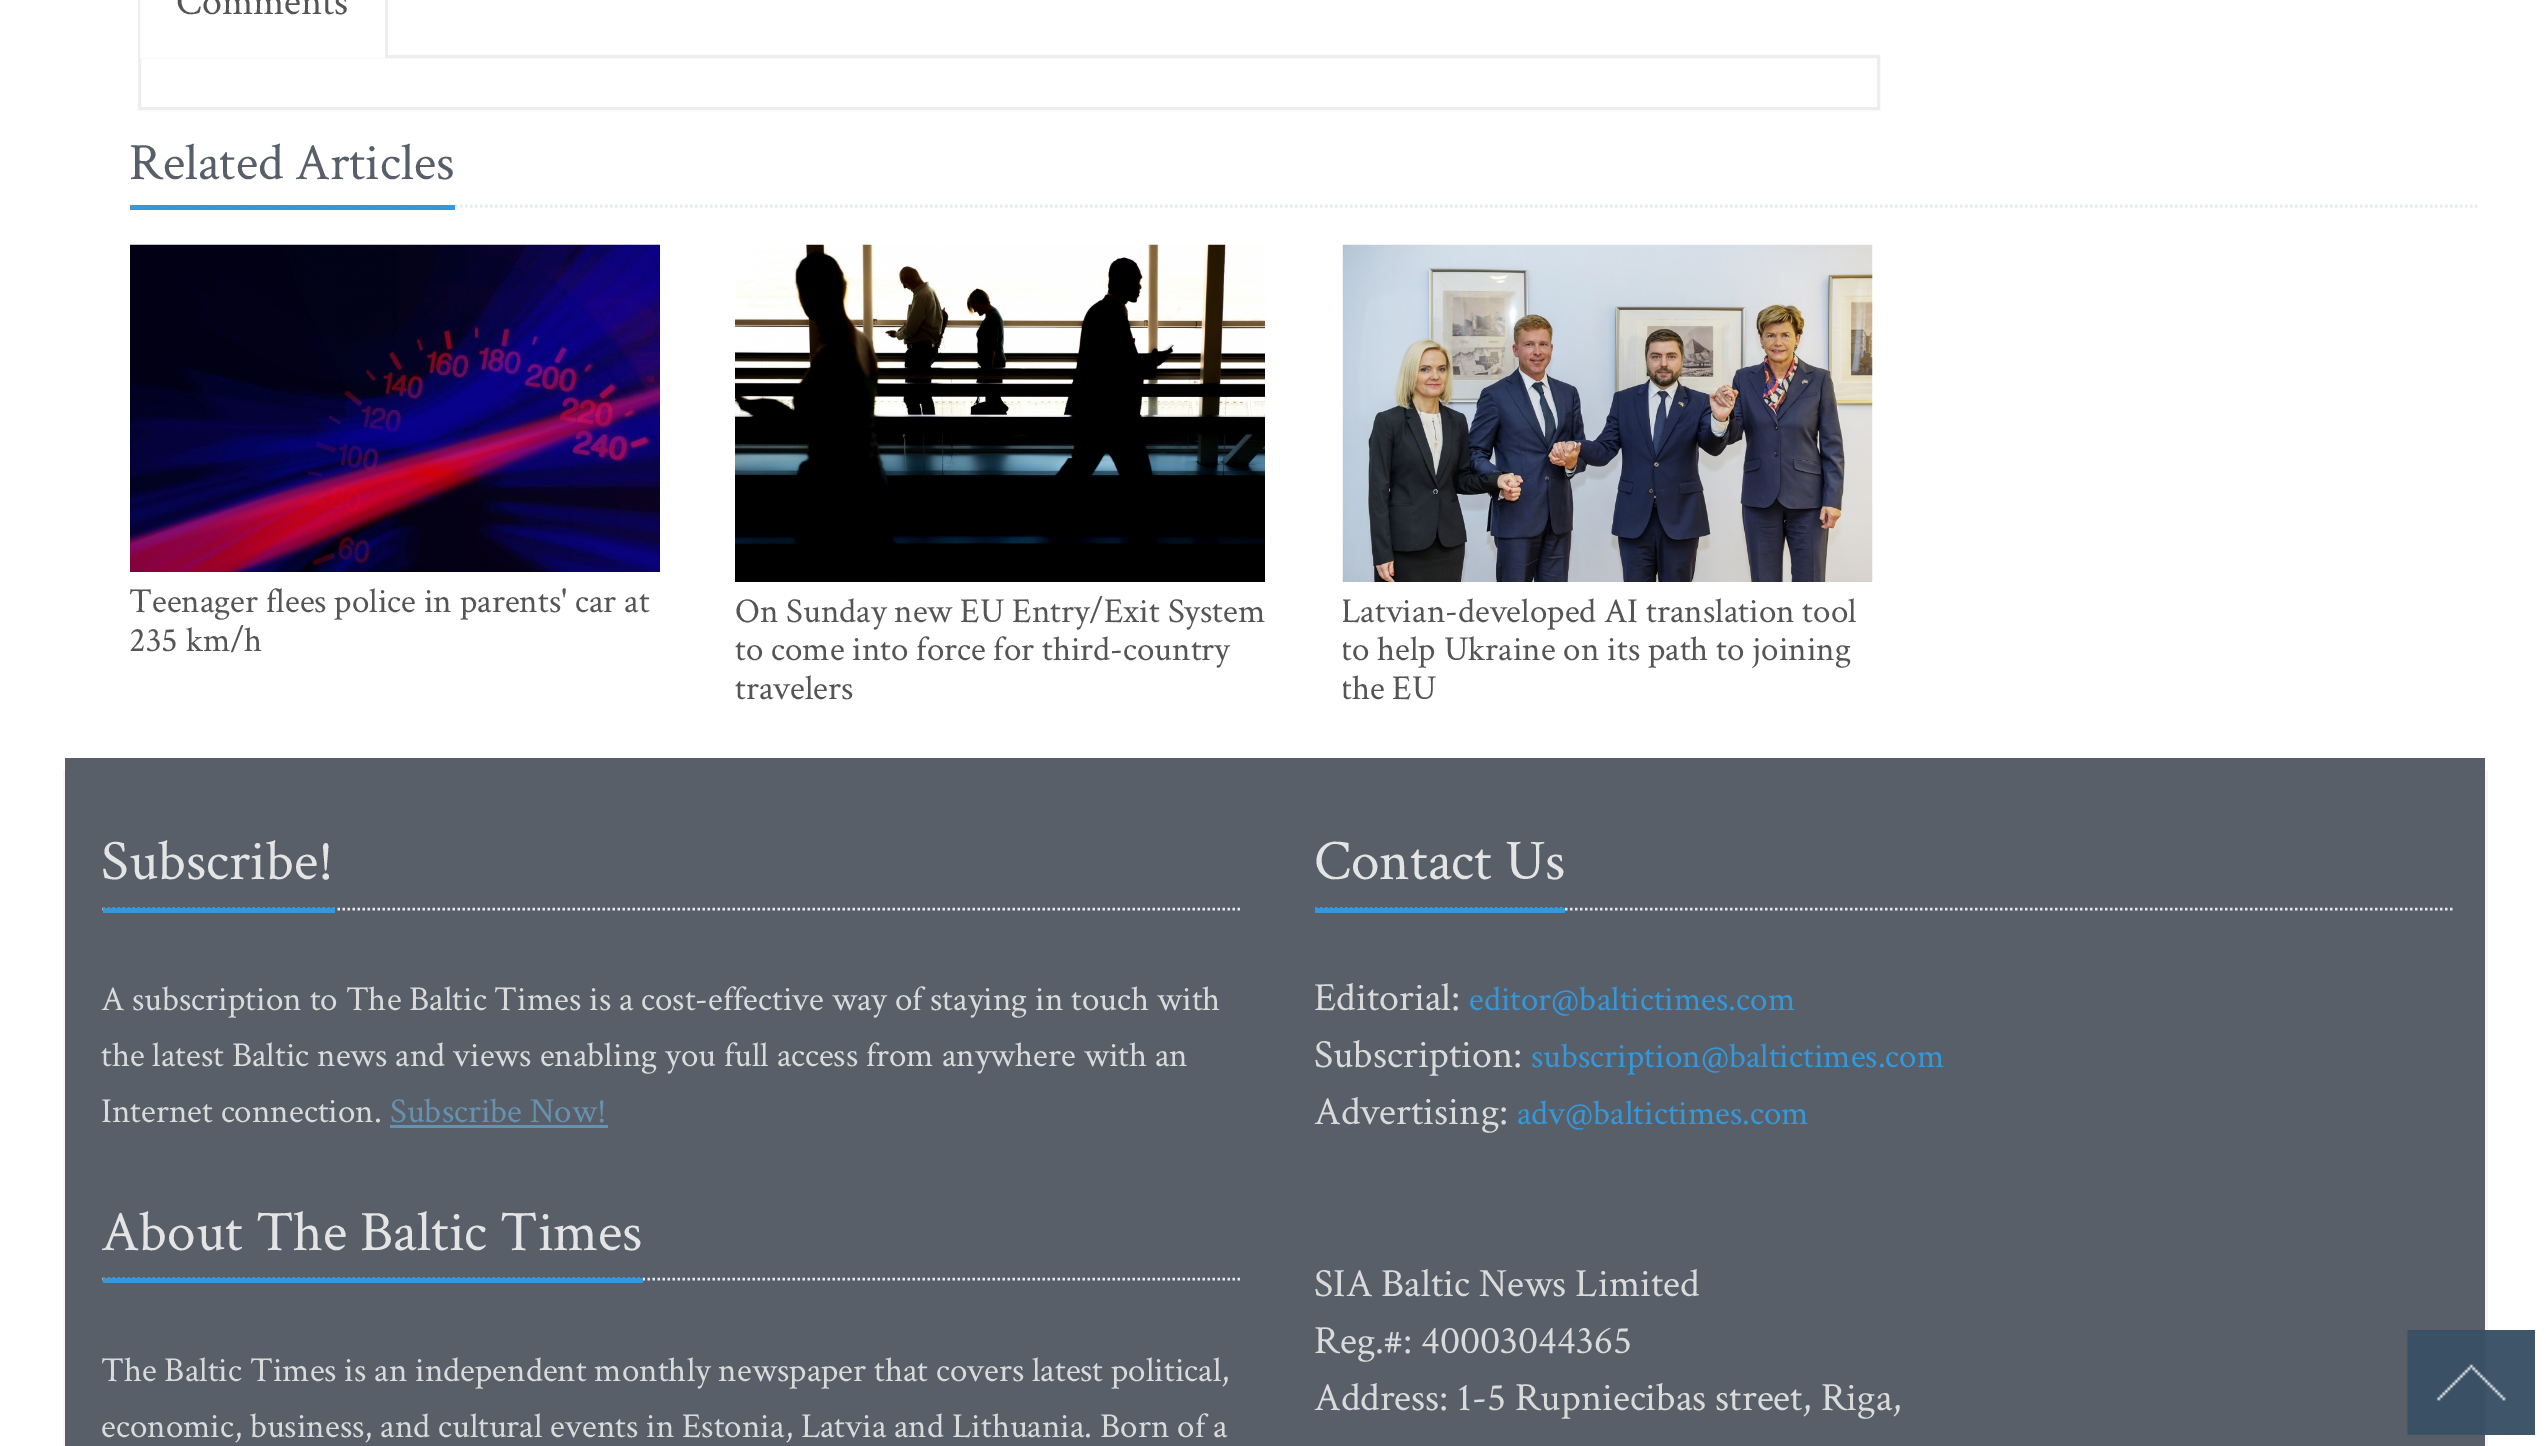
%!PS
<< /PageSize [2546 1446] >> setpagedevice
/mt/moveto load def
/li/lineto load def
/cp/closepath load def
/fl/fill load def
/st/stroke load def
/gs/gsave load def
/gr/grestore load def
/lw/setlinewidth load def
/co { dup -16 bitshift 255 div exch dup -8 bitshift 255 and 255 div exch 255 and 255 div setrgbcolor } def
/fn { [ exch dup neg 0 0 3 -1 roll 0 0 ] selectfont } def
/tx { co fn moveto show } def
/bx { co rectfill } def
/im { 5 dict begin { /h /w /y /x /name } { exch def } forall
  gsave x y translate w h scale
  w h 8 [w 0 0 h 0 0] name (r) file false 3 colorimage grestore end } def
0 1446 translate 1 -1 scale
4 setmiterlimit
0 0 2546 1446 16#FFFFFF bx
2485 770 3 676 16#F7F7F7 bx
63 770 2 676 16#F7F7F7 bx
16#EEEEEE co
3 lw
139.5 56.5 1739 52 rectstroke
140 55 245 3 16#FFFFFF bx
16#EEEEEE co
388 -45 mt 388 58 li 385 58 li 385 -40 li cp fl
138 58 mt 138 -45 li 140 -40 li 140 58 li cp fl
16#E4E9F0 co
2.5 lw
[2.5 2.5] 0 setdash
130 206 mt 2480 206 li st
130 205 325 5 16#3498DB bx
(media/1.raw) 130 244 530 328 im
(media/2.raw) 735 244 530 338 im
(media/3.raw) 1342 244 531 338 im
65 758 2420 688 16#585F69 bx
16#E4E9F0 co
102.5 909 mt 1240 909 li st
103 908 232 5 16#3498DB bx
390 1125 218 3 16#6692B0 bx
16#E4E9F0 co
102.5 1279 mt 1240 1279 li st
103 1278 540 5 16#3498DB bx
16#E4E9F0 co
1315 909 mt 2452.5 909 li st
1315 908 250 5 16#3498DB bx
(media/4.raw) 2407 1330 128 105 im
(Comments) 176 14 /CrimsonText-Regular 40 16#555555 tx
(Related Articles) 129 179 /CrimsonText-Regular 52.5 16#585F69 tx
(Teenager flees police in parents' car at) 129 612 /CrimsonText-Regular 35 16#555555 tx
(235 km/h) 129 651 /CrimsonText-Regular 35 16#555555 tx
(On Sunday new EU Entry/Exit System) 735 622 /CrimsonText-Regular 35 16#555555 tx
(to come into force for third-country) 735 660 /CrimsonText-Regular 35 16#555555 tx
(travelers) 735 699 /CrimsonText-Regular 35 16#555555 tx
gs
1343 245 530 525 rectclip
(Latvian-developed AI translation tool) 1341 622 /CrimsonText-Regular 35 16#555555 tx
(to help Ukraine on its path to joining) 1341 660 /CrimsonText-Regular 35 16#555555 tx
(the EU) 1341 699 /CrimsonText-Regular 35 16#555555 tx
gr
(Subscribe!) 101 879 /CrimsonText-Regular 57.5 16#E4E4E4 tx
(A subscription to The Baltic Times is a cost-effective way of staying in touch with) 101 1010 /CrimsonText-Regular 35 16#DADADA tx
(the latest Baltic news and views enabling you full access from anywhere with an) 101 1066 /CrimsonText-Regular 35 16#DADADA tx
(Internet connection.) 101 1122 /CrimsonText-Regular 35 16#DADADA tx
(Subscribe Now!) 390 1122 /CrimsonText-Regular 35 16#6692B0 tx
(About The Baltic Times) 101 1250 /CrimsonText-Regular 57.5 16#E4E4E4 tx
(The Baltic Times is an independent monthly newspaper that covers latest political,) 101 1381 /CrimsonText-Regular 35 16#DADADA tx
(economic, business, and cultural events in Estonia, Latvia and Lithuania. Born of a) 101 1437 /CrimsonText-Regular 35 16#DADADA tx
(Contact Us) 1314 879 /CrimsonText-Regular 57.5 16#E4E4E4 tx
(Editorial:) 1314 1010 /CrimsonText-Regular 40 16#DADADA tx
(editor@baltictimes.com) 1469 1010 /CrimsonText-Regular 35 16#3498DB tx
(Subscription:) 1314 1067 /CrimsonText-Regular 40 16#DADADA tx
(subscription@baltictimes.com) 1531 1067 /CrimsonText-Regular 35 16#3498DB tx
(Advertising:) 1314 1124 /CrimsonText-Regular 40 16#DADADA tx
(adv@baltictimes.com) 1517 1124 /CrimsonText-Regular 35 16#3498DB tx
(SIA Baltic News Limited) 1314 1296 /CrimsonText-Regular 40 16#DADADA tx
(Reg.#: 40003044365) 1314 1353 /CrimsonText-Regular 40 16#DADADA tx
(Address: 1-5 Rupniecibas street, Riga,) 1314 1410 /CrimsonText-Regular 40 16#DADADA tx
showpage
